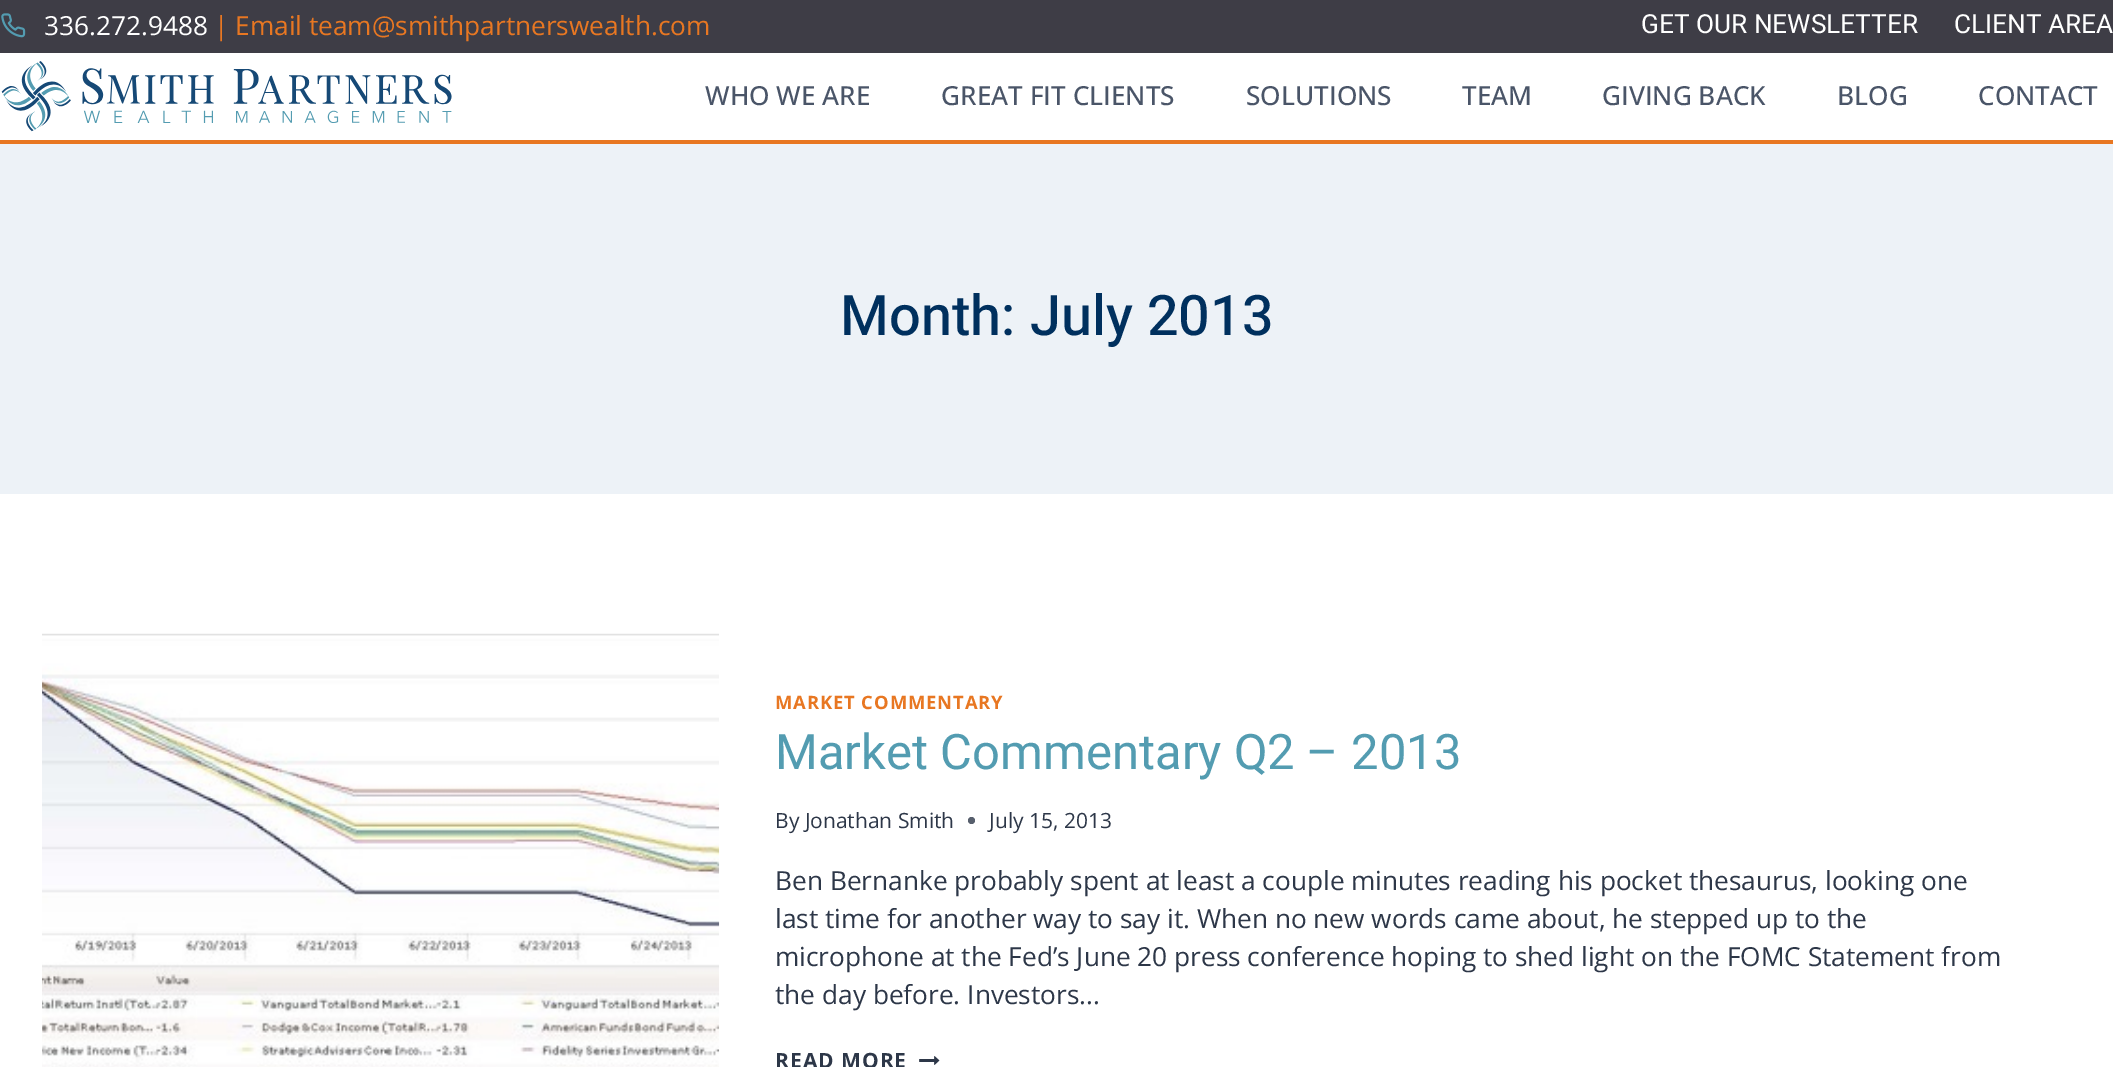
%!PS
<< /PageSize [2113 1067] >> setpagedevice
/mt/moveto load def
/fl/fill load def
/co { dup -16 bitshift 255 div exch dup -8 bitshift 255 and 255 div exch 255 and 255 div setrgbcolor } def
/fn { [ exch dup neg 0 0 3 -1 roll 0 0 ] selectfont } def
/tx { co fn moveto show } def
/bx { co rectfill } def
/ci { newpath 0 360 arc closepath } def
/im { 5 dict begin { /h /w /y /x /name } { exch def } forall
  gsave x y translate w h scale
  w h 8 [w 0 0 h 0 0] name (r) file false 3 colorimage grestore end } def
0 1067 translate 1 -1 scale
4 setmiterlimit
0 0 2113 1067 16#FFFFFF bx
0 0 2113 53 16#3E3D46 bx
(media/1.raw) 1 13 25 25 im
0 140 2113 4 16#E87722 bx
(media/2.raw) 1 61 451 71 im
0 144 2113 350 16#EDF2F7 bx
(media/3.raw) 42 633 678 434 im
16#575F6D co
971.5 820.5 3.5 ci fl
(media/4.raw) 919 1056 21 9 im
(336.272.9488) 44 35 /OpenSans-Regular 26.25 16#FFFFFF tx
(| Email team@smithpartnerswealth.com) 214 35 /OpenSans-Regular 26.25 16#E87722 tx
(GET OUR NEWSLETTER) 1641 33 /Heebo-Regular 26.25 16#FFFFFF tx
(CLIENT AREA) 1954 33 /Heebo-Regular 26.25 16#FFFFFF tx
(WHO WE ARE) 705 105 /OpenSans-Medium 26.25 16#4A5568 tx
(GREAT FIT CLIENTS) 941 105 /OpenSans-Medium 26.25 16#4A5568 tx
(SOLUTIONS) 1246 105 /OpenSans-Medium 26.25 16#4A5568 tx
(TEAM) 1462 105 /OpenSans-Medium 26.25 16#4A5568 tx
(GIVING BACK) 1602 105 /OpenSans-Medium 26.25 16#4A5568 tx
(BLOG) 1837 105 /OpenSans-Medium 26.25 16#4A5568 tx
(CONTACT) 1978 105 /OpenSans-Medium 26.25 16#4A5568 tx
(Month: July 2013) 840 335 /Heebo-Medium 56 16#00305E tx
/OpenSans-Bold 18.4 fn
16#E87722 co
775 709 mt .9 0 (MARKET COMMENTARY) ashow
(Market Commentary Q2 – 2013) 775 769 /Heebo-Regular 49 16#539CB1 tx
(By Jonathan Smith) 775 828 /OpenSans-Regular 21 16#2D3748 tx
(July 15, 2013) 989 828 /OpenSans-Regular 21 16#2D3748 tx
(Ben Bernanke probably spent at least a couple minutes reading his pocket thesaurus, looking one) 775 890 /OpenSans-Regular 26.25 16#2D3748 tx
(last time for another way to say it. When no new words came about, he stepped up to the) 775 928 /OpenSans-Regular 26.25 16#2D3748 tx
(microphone at the Fed’s June 20 press conference hoping to shed light on the FOMC Statement from) 775 966 /OpenSans-Regular 26.25 16#2D3748 tx
(the day before. Investors...) 775 1004 /OpenSans-Regular 26.25 16#2D3748 tx
/OpenSans-Bold 21 fn
775 1068 mt 1 0 (READ MORE) ashow
showpage
